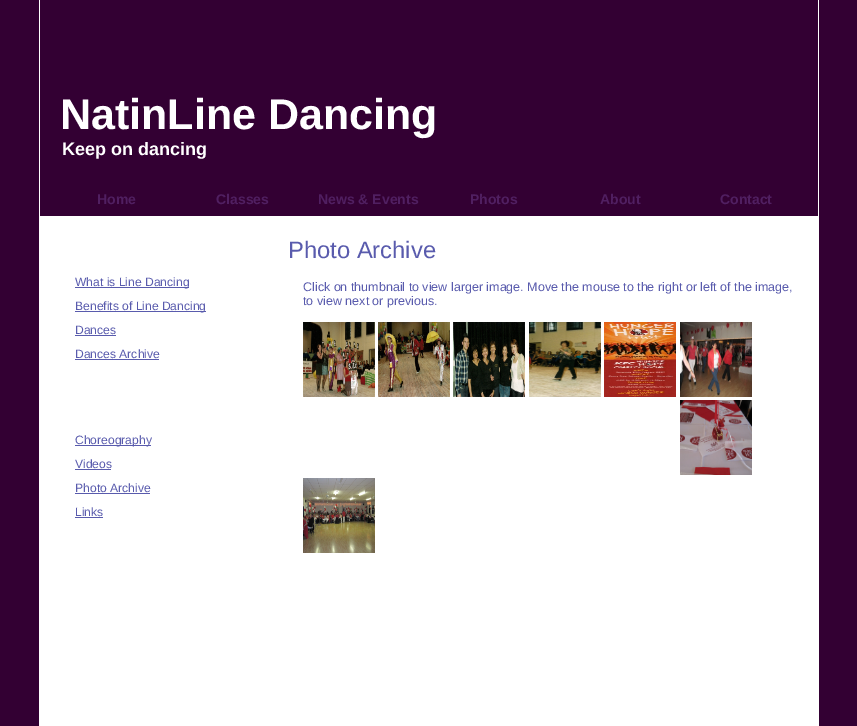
%!PS
<< /PageSize [857 726] >> setpagedevice
/co { dup -16 bitshift 255 div exch dup -8 bitshift 255 and 255 div exch 255 and 255 div setrgbcolor } def
/fn { [ exch dup neg 0 0 3 -1 roll 0 0 ] selectfont } def
/tx { co fn moveto show } def
/bx { co rectfill } def
/im { 5 dict begin { /h /w /y /x /name } { exch def } forall
  gsave x y translate w h scale
  w h 8 [w 0 0 h 0 0] name (r) file false 3 colorimage grestore end } def
0 726 translate 1 -1 scale
4 setmiterlimit
0 0 857 726 16#330033 bx
818 0 1 726 16#FFFFFF bx
39 0 1 726 16#FFFFFF bx
40 216 778 510 16#FFFFFF bx
75 287 114 1 16#595BAD bx
75 311 131 1 16#595BAD bx
75 335 41 1 16#595BAD bx
75 359 84 1 16#595BAD bx
75 445 76 1 16#595BAD bx
75 469 36 1 16#595BAD bx
75 493 75 1 16#595BAD bx
75 517 28 1 16#595BAD bx
(media/1.raw) 303 322 72 75 im
(media/2.raw) 378 322 72 75 im
(media/3.raw) 453 322 72 75 im
(media/4.raw) 529 322 72 75 im
(media/5.raw) 604 322 72 75 im
(media/6.raw) 680 322 72 75 im
(media/7.raw) 680 400 72 75 im
(media/8.raw) 303 478 72 75 im
(NatinLine Dancing) 60 129 /LiberationSans-Bold 43 16#FFFFFF tx
(Keep on dancing) 62 155 /LiberationSans-Bold 18 16#FFFFFF tx
(Home) 97 204 /LiberationSans-Bold 14 16#501F61 tx
(Classes) 216 204 /LiberationSans-Bold 14 16#501F61 tx
(News & Events) 318 204 /LiberationSans-Bold 14 16#501F61 tx
(Photos) 470 204 /LiberationSans-Bold 14 16#501F61 tx
(About) 600 204 /LiberationSans-Bold 14 16#501F61 tx
(Contact) 720 204 /LiberationSans-Bold 14 16#501F61 tx
(What is Line Dancing) 75 286 /LiberationSans-Regular 12.1 16#595BAD tx
(Benefits of Line Dancing) 75 310 /LiberationSans-Regular 12.1 16#595BAD tx
(Dances) 75 334 /LiberationSans-Regular 12.1 16#595BAD tx
(Dances Archive) 75 358 /LiberationSans-Regular 12.1 16#595BAD tx
(Choreography) 75 444 /LiberationSans-Regular 12.1 16#595BAD tx
(Videos) 75 468 /LiberationSans-Regular 12.1 16#595BAD tx
(Photo Archive) 75 492 /LiberationSans-Regular 12.1 16#595BAD tx
(Links) 75 516 /LiberationSans-Regular 12.1 16#595BAD tx
(Photo Archive) 288 258 /LiberationSans-Regular 23.75 16#595BAD tx
(Click on thumbnail to view larger image. Move the mouse to the right or left of the image,) 303 291 /LiberationSans-Regular 12.5 16#595BAD tx
(to view next or previous.) 303 305 /LiberationSans-Regular 12.5 16#595BAD tx
showpage
